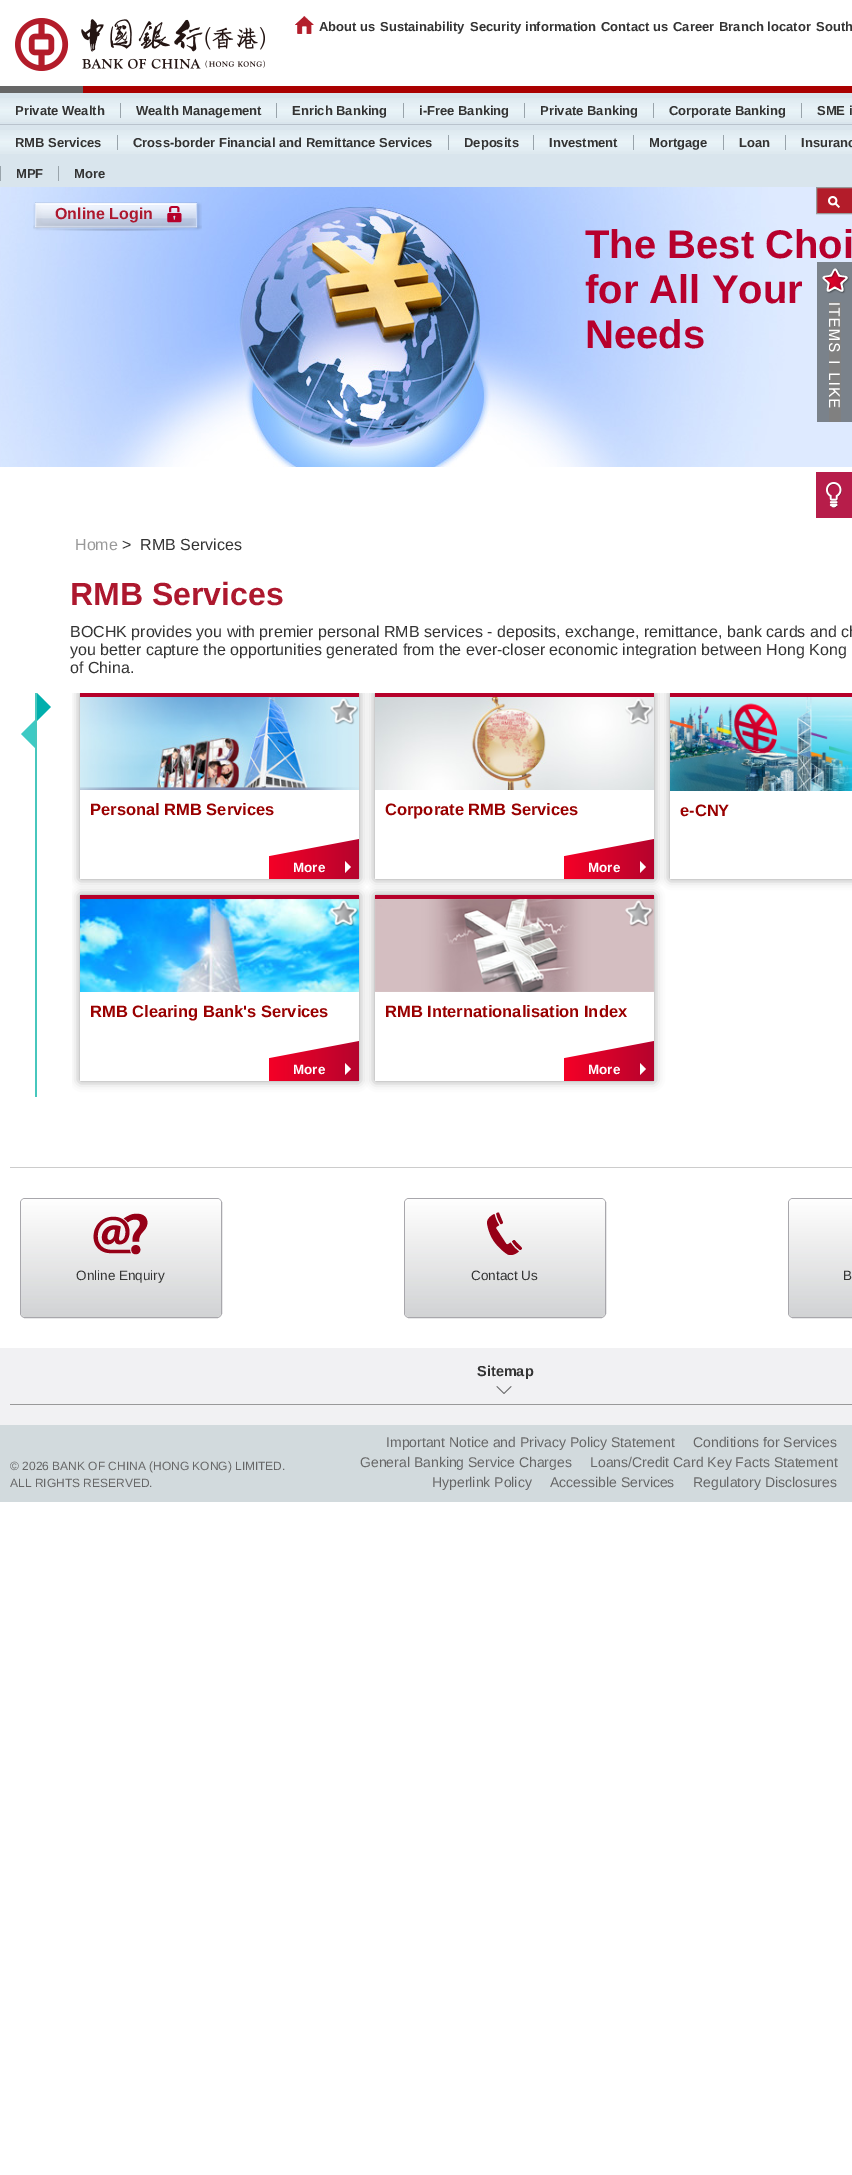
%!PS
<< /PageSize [852 2175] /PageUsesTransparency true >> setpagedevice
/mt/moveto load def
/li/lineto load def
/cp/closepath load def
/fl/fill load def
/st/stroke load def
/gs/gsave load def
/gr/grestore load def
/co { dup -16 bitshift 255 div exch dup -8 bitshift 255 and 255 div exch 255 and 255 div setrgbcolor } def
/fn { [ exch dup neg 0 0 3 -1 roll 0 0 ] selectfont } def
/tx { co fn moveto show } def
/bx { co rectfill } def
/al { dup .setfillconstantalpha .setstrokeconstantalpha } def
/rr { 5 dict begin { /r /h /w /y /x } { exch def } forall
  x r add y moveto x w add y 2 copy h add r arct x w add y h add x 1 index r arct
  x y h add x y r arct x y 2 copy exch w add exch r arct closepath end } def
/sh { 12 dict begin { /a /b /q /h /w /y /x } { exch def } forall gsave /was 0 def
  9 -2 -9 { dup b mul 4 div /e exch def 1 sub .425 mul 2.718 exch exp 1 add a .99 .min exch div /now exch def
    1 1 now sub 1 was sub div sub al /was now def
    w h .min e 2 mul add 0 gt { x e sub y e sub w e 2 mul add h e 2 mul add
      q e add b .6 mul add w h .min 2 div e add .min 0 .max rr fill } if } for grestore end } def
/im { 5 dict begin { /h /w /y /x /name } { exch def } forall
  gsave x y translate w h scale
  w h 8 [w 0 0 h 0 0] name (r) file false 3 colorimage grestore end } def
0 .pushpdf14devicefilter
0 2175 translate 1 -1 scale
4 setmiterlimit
0 0 852 2175 16#FFFFFF bx
(media/1.raw) 15 18 250 53 im
(media/2.raw) 295 16 19 18 im
0 86 83 7 16#666666 bx
83 86 769 7 16#AA0000 bx
0 93 852 31 16#D9E5ED bx
(media/3.raw) 0 98 852 24 im
120 103 1 15 16#99A4AB bx
276 103 1 15 16#99A4AB bx
403 103 1 15 16#99A4AB bx
524 103 1 15 16#99A4AB bx
653 103 1 15 16#99A4AB bx
801 103 1 15 16#99A4AB bx
0 125 852 62 16#D9E5ED bx
(media/3.raw) 0 130 852 24 im
0 124 852 1 16#B9C3CD bx
117 135 1 15 16#99A4AB bx
448 135 1 15 16#99A4AB bx
533 135 1 15 16#99A4AB bx
633 135 1 15 16#99A4AB bx
723 135 1 15 16#99A4AB bx
785 135 1 15 16#99A4AB bx
0 166 1 15 16#99A4AB bx
58 166 1 15 16#99A4AB bx
(media/7.raw) 0 187 852 280 im
(media/4.raw) 33 202 169 29 im
(media/5.raw) 167 206 15 17 im
16#B31C2A co
816.5 187.5 mt 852.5 187.5 li 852.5 213.5 li 816.5 213.5 li cp gs fl gr
16#999999 co
st
(media/6.raw) 828 196 12 12 im
817 262 35 160 16#7A828B bx
(media/8.raw) 822 268 28 26 im
(media/9.raw) 829 302 12 120 im
816 472 36 46 16#B71D4A bx
(media/10.raw) 826 482 16 26 im
(media/11.raw) 21 693 30 55 im
35 748 2 349 16#47C7BD bx
gs
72 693 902 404 rectclip
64 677 mt 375 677 li 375 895 li 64 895 li cp 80 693 mt 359 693 li 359 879 li 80 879 li cp eoclip newpath
16#999999 co
80 693 279 186 0 5 1 sh
gr
80 693 279 4 16#B6002A bx
(media/12.raw) 80 697 279 93 im
(media/13.raw) 330 698 29 27 im
(media/14.raw) 269 839 90 40 im
gs
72 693 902 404 rectclip
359 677 mt 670 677 li 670 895 li 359 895 li cp 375 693 mt 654 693 li 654 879 li 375 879 li cp eoclip newpath
16#999999 co
375 693 279 186 0 5 1 sh
gr
375 693 279 4 16#B6002A bx
(media/15.raw) 375 697 279 93 im
(media/16.raw) 625 698 29 27 im
(media/14.raw) 564 839 90 40 im
gs
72 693 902 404 rectclip
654 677 mt 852 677 li 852 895 li 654 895 li cp 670 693 mt 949 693 li 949 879 li 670 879 li cp eoclip newpath
16#999999 co
670 693 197 186 0 5 1 sh
gr
670 693 182 4 16#B6002A bx
(media/17.raw) 670 697 182 94 im
gs
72 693 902 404 rectclip
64 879 mt 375 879 li 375 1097 li 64 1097 li cp 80 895 mt 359 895 li 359 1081 li 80 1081 li cp eoclip newpath
16#999999 co
80 895 279 186 0 5 1 sh
gr
80 895 279 4 16#B6002A bx
(media/18.raw) 80 899 279 93 im
(media/19.raw) 330 900 29 27 im
(media/14.raw) 269 1041 90 40 im
gs
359 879 mt 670 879 li 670 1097 li 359 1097 li cp 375 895 mt 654 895 li 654 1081 li 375 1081 li cp eoclip newpath
16#999999 co
375 895 279 186 0 5 1 sh
gr
375 895 279 4 16#B6002A bx
(media/20.raw) 375 899 279 93 im
(media/21.raw) 625 900 29 27 im
(media/14.raw) 564 1041 90 40 im
10 1167 842 1 16#CCCCCC bx
16#A8A7AC co
20.5 1198.5 201 119 4.5 rr st
(media/22.raw) 21 1199 200 118 im
(media/23.raw) 93 1213 55 42 im
404.5 1198.5 201 119 4.5 rr st
(media/22.raw) 405 1199 200 118 im
(media/24.raw) 487 1212 35 43 im
788.5 1198.5 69 119 4.5 rr st
(media/25.raw) 789 1199 63 118 im
0 1425 852 77 16#D2DADD bx
0 1348 852 77 16#F1F1F3 bx
(media/26.raw) 496 1386 16 8 im
10 1404 842 1 16#999999 bx
(About us) 319 31 /LiberationSans-Bold 13 16#333333 tx
(Sustainability) 380 31 /LiberationSans-Bold 13 16#333333 tx
(Security information) 470 31 /LiberationSans-Bold 13 16#333333 tx
(Contact us) 601 31 /LiberationSans-Bold 13 16#333333 tx
(Career) 673 31 /LiberationSans-Bold 13 16#333333 tx
(Branch locator) 719 31 /LiberationSans-Bold 13 16#333333 tx
(South) 816 31 /LiberationSans-Bold 13 16#333333 tx
(Private Wealth) 15 115 /LiberationSans-Bold 13 16#333333 tx
(Wealth Management) 136 115 /LiberationSans-Bold 13 16#333333 tx
(Enrich Banking) 292 115 /LiberationSans-Bold 13 16#333333 tx
(i-Free Banking) 419 115 /LiberationSans-Bold 13 16#333333 tx
(Private Banking) 540 115 /LiberationSans-Bold 13 16#333333 tx
(Corporate Banking) 669 115 /LiberationSans-Bold 13 16#333333 tx
(SME i) 817 115 /LiberationSans-Bold 13 16#333333 tx
(RMB Services) 15 147 /LiberationSans-Bold 13 16#333333 tx
(Cross-border Financial and Remittance Services) 133 147 /LiberationSans-Bold 13 16#333333 tx
(Deposits) 464 147 /LiberationSans-Bold 13 16#333333 tx
(Investment) 549 147 /LiberationSans-Bold 13 16#333333 tx
(Mortgage) 649 147 /LiberationSans-Bold 13 16#333333 tx
(Loan) 739 147 /LiberationSans-Bold 13 16#333333 tx
(Insuranc) 801 147 /LiberationSans-Bold 13 16#333333 tx
(MPF) 16 178 /LiberationSans-Bold 13 16#333333 tx
(More) 74 178 /LiberationSans-Bold 13 16#333333 tx
(Online Login) 55 219 /LiberationSans-Bold 16 16#AD182E tx
(The Best Choi) 585 258 /LiberationSans-Bold 40 16#B7002D tx
(for All Your) 585 303 /LiberationSans-Bold 40 16#B7002D tx
(Needs) 585 348 /LiberationSans-Bold 40 16#B7002D tx
(Home) 75 550 /LiberationSans-Regular 16 16#999999 tx
(>  RMB Services) 122 550 /LiberationSans-Regular 16 16#333333 tx
(RMB Services) 70 605 /LiberationSans-Bold 32 16#AD182E tx
(BOCHK provides you with premier personal RMB services - deposits, exchange, remittance, bank cards and ch) 70 637 /LiberationSans-Regular 16 16#333333 tx
(you better capture the opportunities generated from the ever-closer economic integration between Hong Kong) 70 655 /LiberationSans-Regular 16 16#333333 tx
(of China.) 70 673 /LiberationSans-Regular 16 16#333333 tx
(Personal RMB Services) 90 815 /LiberationSans-Bold 16.5 16#990000 tx
(More) 293 872 /LiberationSans-Bold 13.5 16#FFFFFF tx
(Corporate RMB Services) 385 815 /LiberationSans-Bold 16.5 16#990000 tx
(More) 588 872 /LiberationSans-Bold 13.5 16#FFFFFF tx
(e-CNY) 680 816 /LiberationSans-Bold 16.5 16#990000 tx
(RMB Clearing Bank's Services) 90 1017 /LiberationSans-Bold 16.5 16#990000 tx
(More) 293 1074 /LiberationSans-Bold 13.5 16#FFFFFF tx
(RMB Internationalisation Index) 385 1017 /LiberationSans-Bold 16.5 16#990000 tx
(More) 588 1074 /LiberationSans-Bold 13.5 16#FFFFFF tx
(Online Enquiry) 76 1280 /LiberationSans-Regular 13.5 16#333333 tx
(Contact Us) 471 1280 /LiberationSans-Regular 13.5 16#333333 tx
(B) 843 1280 /LiberationSans-Regular 13.5 16#333333 tx
(Sitemap) 477 1376 /LiberationSans-Bold 14.5 16#333333 tx
(© 2026 BANK OF CHINA \(HONG KONG\) LIMITED.) 10 1470 /LiberationSans-Regular 12 16#666666 tx
(ALL RIGHTS RESERVED.) 10 1487 /LiberationSans-Regular 12 16#666666 tx
(Important Notice and Privacy Policy Statement) 386 1447 /LiberationSans-Regular 14 16#666666 tx
(Conditions for Services) 693 1447 /LiberationSans-Regular 14 16#666666 tx
(General Banking Service Charges) 360 1467 /LiberationSans-Regular 14 16#666666 tx
(Loans/Credit Card Key Facts Statement) 590 1467 /LiberationSans-Regular 14 16#666666 tx
(Hyperlink Policy) 432 1487 /LiberationSans-Regular 14 16#666666 tx
(Accessible Services) 550 1487 /LiberationSans-Regular 14 16#666666 tx
(Regulatory Disclosures) 693 1487 /LiberationSans-Regular 14 16#666666 tx
.poppdf14devicefilter showpage
